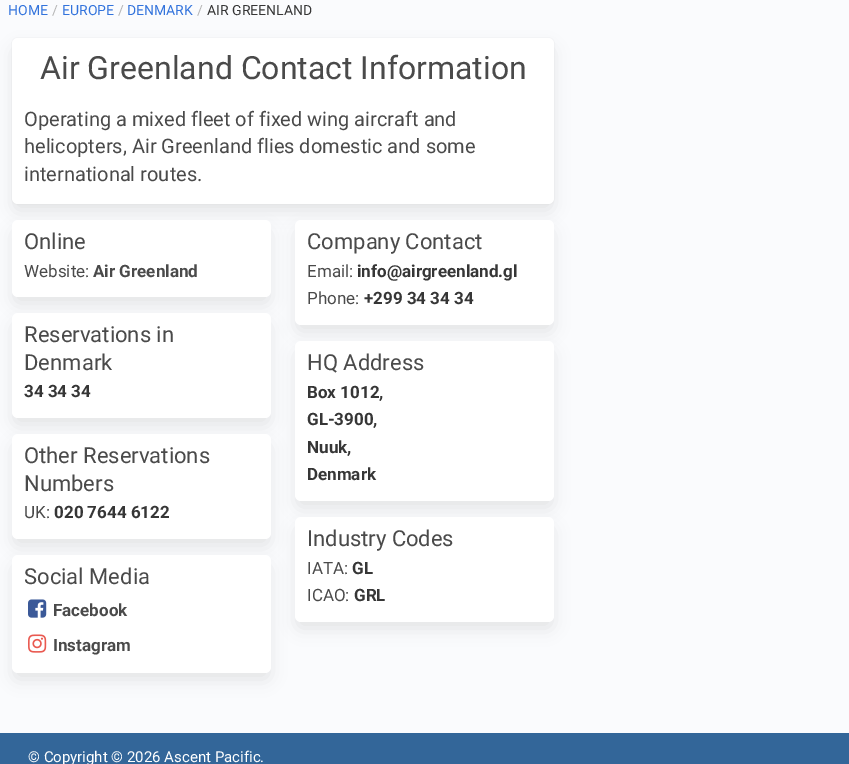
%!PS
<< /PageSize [849 764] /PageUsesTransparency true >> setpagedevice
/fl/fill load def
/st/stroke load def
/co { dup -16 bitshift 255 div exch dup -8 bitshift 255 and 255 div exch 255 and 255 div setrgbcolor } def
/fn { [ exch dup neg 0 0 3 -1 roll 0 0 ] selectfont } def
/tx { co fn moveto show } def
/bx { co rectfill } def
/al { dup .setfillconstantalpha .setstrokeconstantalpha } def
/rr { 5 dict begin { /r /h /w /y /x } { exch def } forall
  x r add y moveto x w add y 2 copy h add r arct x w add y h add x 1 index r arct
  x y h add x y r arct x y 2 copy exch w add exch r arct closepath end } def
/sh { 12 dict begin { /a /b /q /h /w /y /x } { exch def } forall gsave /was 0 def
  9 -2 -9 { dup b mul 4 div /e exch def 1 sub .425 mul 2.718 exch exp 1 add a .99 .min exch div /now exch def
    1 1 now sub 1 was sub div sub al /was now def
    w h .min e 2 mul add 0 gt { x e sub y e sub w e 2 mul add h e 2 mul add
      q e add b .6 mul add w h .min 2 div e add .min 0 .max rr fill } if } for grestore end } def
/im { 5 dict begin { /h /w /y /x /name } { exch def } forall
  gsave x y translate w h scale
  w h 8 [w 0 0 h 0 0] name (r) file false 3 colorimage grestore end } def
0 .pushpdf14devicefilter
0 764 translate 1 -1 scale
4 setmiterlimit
0 0 849 764 16#FAFBFD bx
16#F5F6F8 co
11.5 37.5 543 167 6.5 rr st
16#0A0A0A co
14 49 538 161 4 8.5 .1 sh
16#FFFFFF co
12 38 542 166 6 rr fl
16#0A0A0A co
14 231 255 72 4 8.5 .1 sh
16#FFFFFF co
12 220 259 77 6 rr fl
16#0A0A0A co
14 324 255 100 4 8.5 .1 sh
16#FFFFFF co
12 313 259 105 6 rr fl
16#0A0A0A co
14 445 255 100 4 8.5 .1 sh
16#FFFFFF co
12 434 259 105 6 rr fl
16#0A0A0A co
14 566 255 113 4 8.5 .1 sh
16#FFFFFF co
12 555 259 118 6 rr fl
(media/1.raw) 28 599 19 19 im
(media/2.raw) 28 634 19 19 im
16#0A0A0A co
297 231 255 100 4 8.5 .1 sh
16#FFFFFF co
295 220 259 105 6 rr fl
16#0A0A0A co
297 352 255 155 4 8.5 .1 sh
16#FFFFFF co
295 341 259 160 6 rr fl
16#0A0A0A co
297 528 255 100 4 8.5 .1 sh
16#FFFFFF co
295 517 259 105 6 rr fl
0 733 849 31 16#336699 bx
(HOME) 8 15 /Roboto-Regular 14 16#3273DC tx
(/) 52 15 /Roboto-Regular 14 16#B5B5B5 tx
(EUROPE) 62 15 /Roboto-Regular 14 16#3273DC tx
(/) 118 15 /Roboto-Regular 14 16#B5B5B5 tx
(DENMARK) 127 15 /Roboto-Regular 14 16#3273DC tx
(/) 197 15 /Roboto-Regular 14 16#B5B5B5 tx
(AIR GREENLAND) 207 15 /Roboto-Regular 14 16#363636 tx
(Air Greenland Contact Information) 40 79 /Roboto-Regular 32 16#4A4A4A tx
(Operating a mixed fleet of fixed wing aircraft and) 24 126 /Roboto-Regular 20 16#4A4A4A tx
(helicopters, Air Greenland flies domestic and some) 24 153 /Roboto-Regular 20 16#4A4A4A tx
(international routes.) 24 181 /Roboto-Regular 20 16#4A4A4A tx
(Online) 24 249 /Roboto-Regular 22 16#4A4A4A tx
(Website:) 24 277 /Roboto-Regular 17 16#4A4A4A tx
(Air Greenland) 93 277 /Roboto-Bold 17 16#4A4A4A tx
(Reservations in) 24 342 /Roboto-Regular 22 16#4A4A4A tx
(Denmark) 24 370 /Roboto-Regular 22 16#4A4A4A tx
(34 34 34) 24 397 /Roboto-Bold 17 16#363636 tx
(Other Reservations) 24 463 /Roboto-Regular 22 16#4A4A4A tx
(Numbers) 24 491 /Roboto-Regular 22 16#4A4A4A tx
(UK:) 24 518 /Roboto-Regular 17 16#4A4A4A tx
(020 7644 6122) 54 518 /Roboto-Bold 17 16#363636 tx
(Social Media) 24 584 /Roboto-Regular 22 16#4A4A4A tx
(Facebook) 53 616 /Roboto-Bold 17 16#4A4A4A tx
(Instagram) 53 651 /Roboto-Bold 17 16#4A4A4A tx
(Company Contact) 307 249 /Roboto-Regular 22 16#4A4A4A tx
(Email:) 307 277 /Roboto-Regular 17 16#4A4A4A tx
(info@airgreenland.gl) 357 277 /Roboto-Bold 17 16#363636 tx
(Phone:) 307 304 /Roboto-Regular 17 16#4A4A4A tx
(+299 34 34 34) 364 304 /Roboto-Bold 17 16#363636 tx
(HQ Address) 307 370 /Roboto-Regular 22 16#4A4A4A tx
(Box 1012,) 307 398 /Roboto-Bold 17 16#363636 tx
(GL-3900,) 307 425 /Roboto-Bold 17 16#363636 tx
(Nuuk,) 307 453 /Roboto-Bold 17 16#363636 tx
(Denmark) 307 480 /Roboto-Bold 17 16#363636 tx
(Industry Codes) 307 546 /Roboto-Regular 22 16#4A4A4A tx
(IATA:) 307 574 /Roboto-Regular 17 16#4A4A4A tx
(GL) 352 574 /Roboto-Bold 17 16#363636 tx
(ICAO:) 307 601 /Roboto-Regular 17 16#4A4A4A tx
(GRL) 354 601 /Roboto-Bold 17 16#363636 tx
(© Copyright © 2026 Ascent Pacific.) 28 762 /Roboto-Regular 15 16#FFFFFF tx
.poppdf14devicefilter showpage
